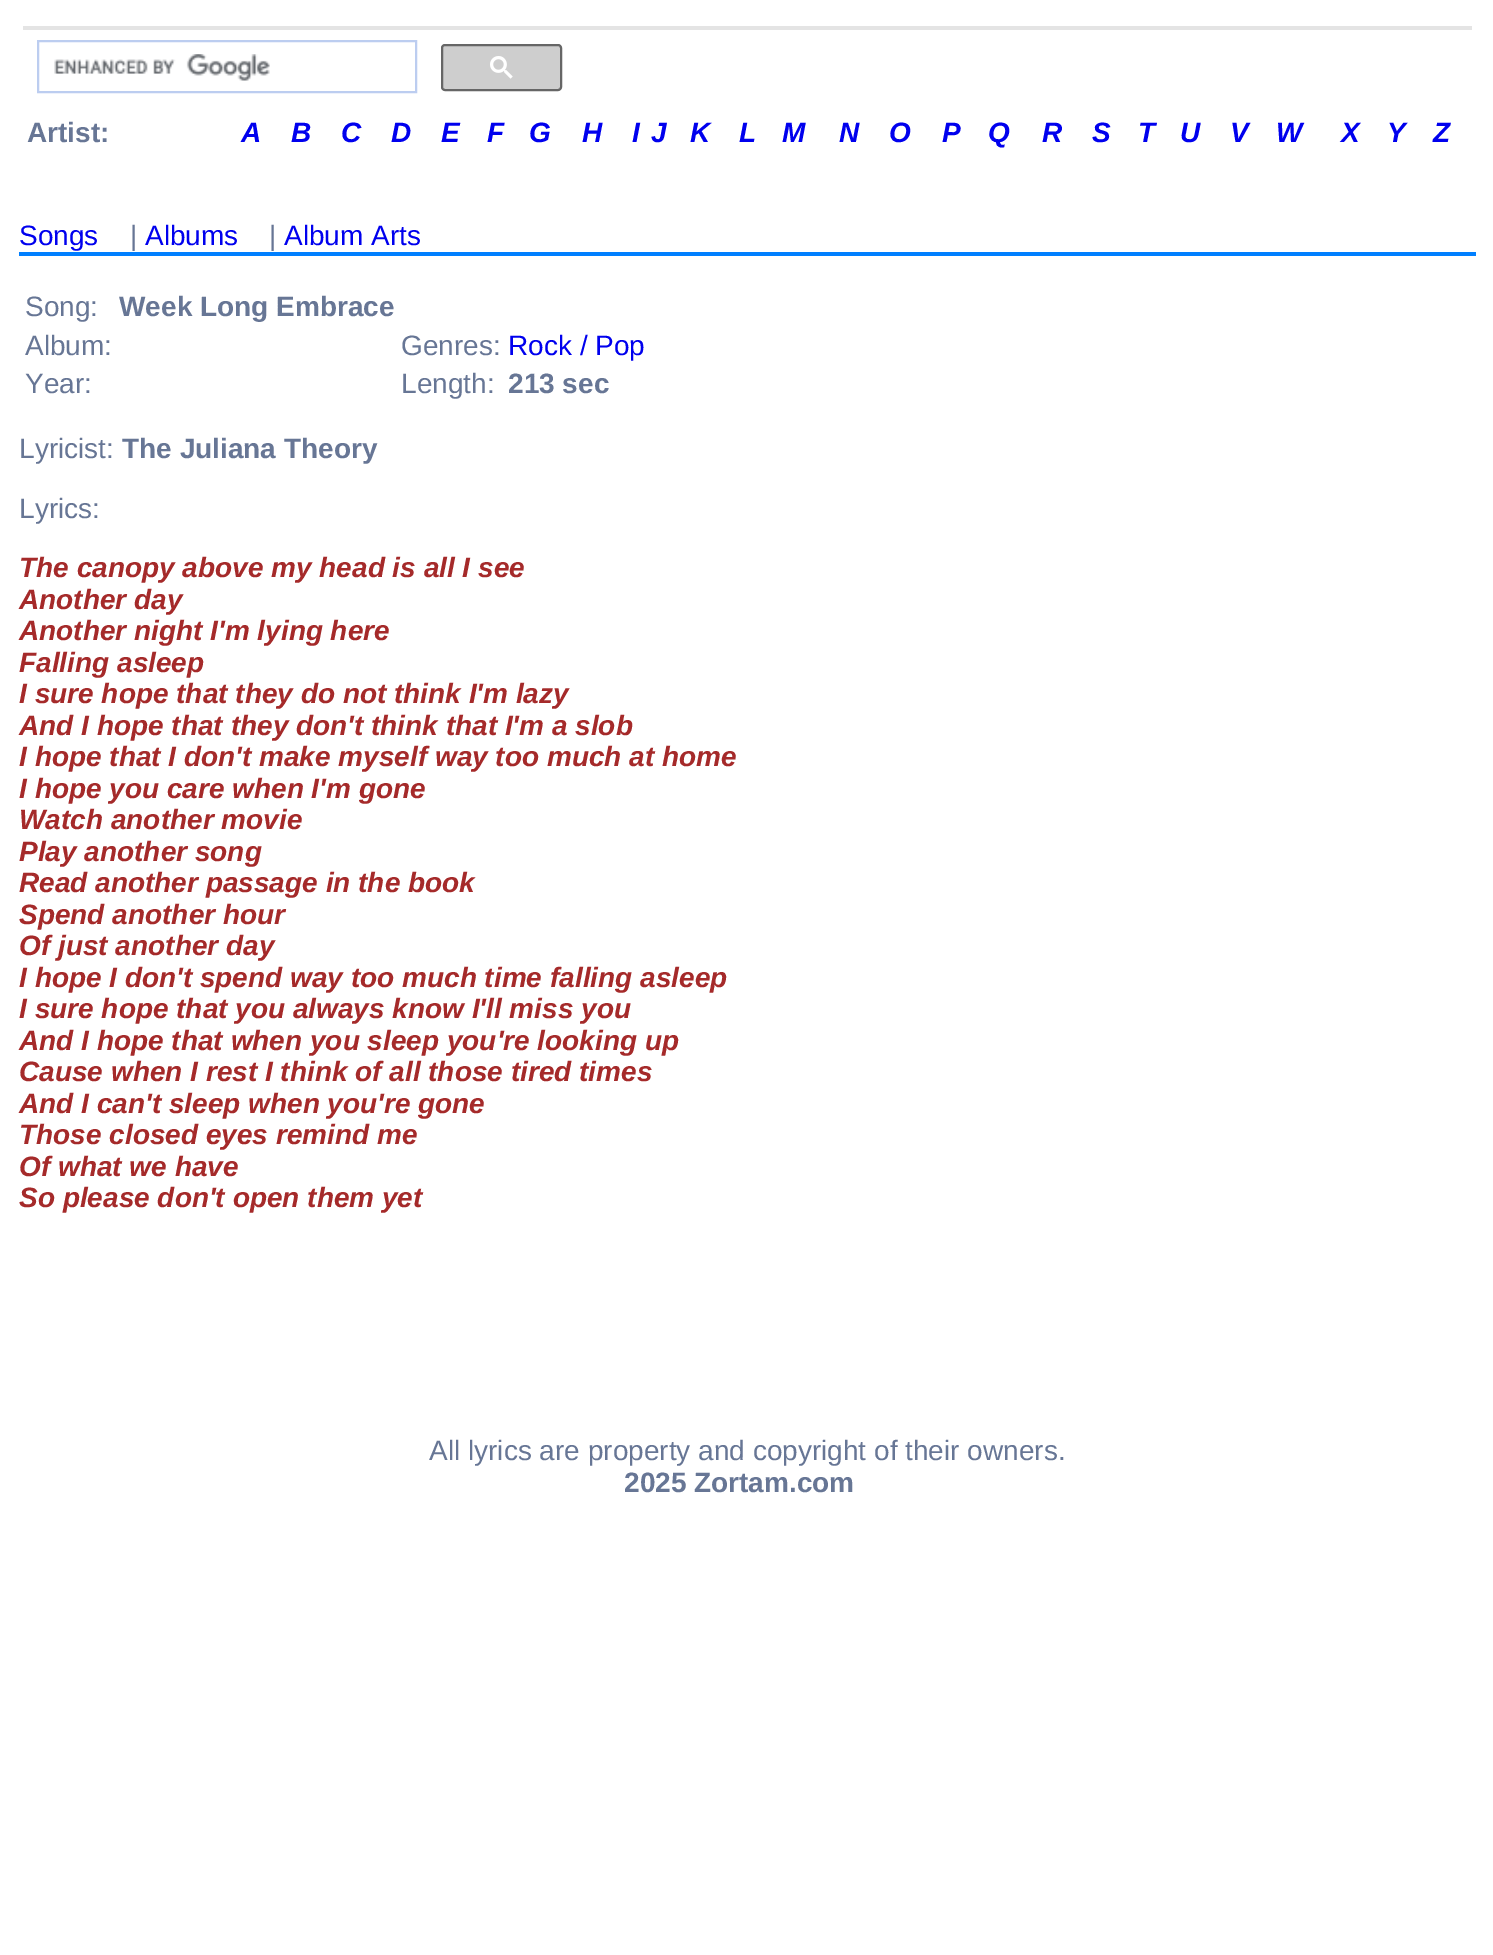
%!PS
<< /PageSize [1493 1955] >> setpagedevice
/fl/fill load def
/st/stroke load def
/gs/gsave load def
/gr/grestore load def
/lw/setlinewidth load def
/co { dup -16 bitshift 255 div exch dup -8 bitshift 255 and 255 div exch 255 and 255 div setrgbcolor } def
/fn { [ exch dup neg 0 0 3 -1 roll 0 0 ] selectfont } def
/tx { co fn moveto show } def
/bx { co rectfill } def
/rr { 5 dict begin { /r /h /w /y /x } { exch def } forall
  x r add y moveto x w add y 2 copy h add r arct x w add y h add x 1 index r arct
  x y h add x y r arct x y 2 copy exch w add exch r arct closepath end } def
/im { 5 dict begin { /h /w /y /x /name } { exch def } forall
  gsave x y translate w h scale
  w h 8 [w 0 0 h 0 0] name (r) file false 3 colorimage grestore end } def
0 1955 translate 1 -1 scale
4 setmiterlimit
0 0 1493 1955 16#FFFFFF bx
23 26 1449 4 16#E4E4E4 bx
16#BCCDF0 co
2 lw
38 41 378 51 rectstroke
(media/1.raw) 54 54 216 27 im
16#CECECE co
442 45 119 45 3 rr gs fl gr
16#666666 co
st
(media/2.raw) 490 56 23 23 im
19 252 1457 4 16#007FFF bx
(Artist:) 27 142 /LiberationSans-Bold 28 16#677695 tx
(A) 241 142 /LiberationSans-BoldItalic 28 16#0000EE tx
(B) 291 142 /LiberationSans-BoldItalic 28 16#0000EE tx
(C) 341 142 /LiberationSans-BoldItalic 28 16#0000EE tx
(D) 391 142 /LiberationSans-BoldItalic 28 16#0000EE tx
(E) 441 142 /LiberationSans-BoldItalic 28 16#0000EE tx
(F) 487 142 /LiberationSans-BoldItalic 28 16#0000EE tx
(G) 529 142 /LiberationSans-BoldItalic 28 16#0000EE tx
(H) 582 142 /LiberationSans-BoldItalic 28 16#0000EE tx
(I) 632 142 /LiberationSans-BoldItalic 28 16#0000EE tx
(J) 651 142 /LiberationSans-BoldItalic 28 16#0000EE tx
(K) 690 142 /LiberationSans-BoldItalic 28 16#0000EE tx
(L) 739 142 /LiberationSans-BoldItalic 28 16#0000EE tx
(M) 782 142 /LiberationSans-BoldItalic 28 16#0000EE tx
(N) 839 142 /LiberationSans-BoldItalic 28 16#0000EE tx
(O) 889 142 /LiberationSans-BoldItalic 28 16#0000EE tx
(P) 942 142 /LiberationSans-BoldItalic 28 16#0000EE tx
(Q) 988 142 /LiberationSans-BoldItalic 28 16#0000EE tx
(R) 1042 142 /LiberationSans-BoldItalic 28 16#0000EE tx
(S) 1092 142 /LiberationSans-BoldItalic 28 16#0000EE tx
(T) 1138 142 /LiberationSans-BoldItalic 28 16#0000EE tx
(U) 1180 142 /LiberationSans-BoldItalic 28 16#0000EE tx
(V) 1230 142 /LiberationSans-BoldItalic 28 16#0000EE tx
(W) 1276 142 /LiberationSans-BoldItalic 28 16#0000EE tx
(X) 1341 142 /LiberationSans-BoldItalic 28 16#0000EE tx
(Y) 1387 142 /LiberationSans-BoldItalic 28 16#0000EE tx
(Z) 1433 142 /LiberationSans-BoldItalic 28 16#0000EE tx
(Songs) 19 245 /LiberationSans-Regular 28 16#0000EE tx
(|) 130 245 /LiberationSans-Regular 28 16#677695 tx
(Albums) 145 245 /LiberationSans-Regular 28 16#0000EE tx
(|) 269 245 /LiberationSans-Regular 28 16#677695 tx
(Album Arts) 284 245 /LiberationSans-Regular 28 16#0000EE tx
(Song:) 25 316 /LiberationSans-Regular 28 16#677695 tx
(Week Long Embrace) 119 316 /LiberationSans-Bold 28 16#677695 tx
(Album:) 25 355 /LiberationSans-Regular 28 16#677695 tx
(Genres:) 401 355 /LiberationSans-Regular 28 16#677695 tx
(Rock / Pop) 508 355 /LiberationSans-Regular 28 16#0000EE tx
(Year:) 25 393 /LiberationSans-Regular 28 16#677695 tx
(Length:) 401 393 /LiberationSans-Regular 28 16#677695 tx
(213 sec) 508 393 /LiberationSans-Bold 28 16#677695 tx
(Lyricist:) 19 458 /LiberationSans-Regular 28 16#677695 tx
(The Juliana Theory) 122 458 /LiberationSans-Bold 28 16#677695 tx
(Lyrics:) 19 518 /LiberationSans-Regular 28 16#677695 tx
(The canopy above my head is all I see) 19 577 /LiberationSans-BoldItalic 28 16#A52A2A tx
(Another day) 19 609 /LiberationSans-BoldItalic 28 16#A52A2A tx
(Another night I'm lying here) 19 640 /LiberationSans-BoldItalic 28 16#A52A2A tx
(Falling asleep) 19 672 /LiberationSans-BoldItalic 28 16#A52A2A tx
(I sure hope that they do not think I'm lazy) 19 703 /LiberationSans-BoldItalic 28 16#A52A2A tx
(And I hope that they don't think that I'm a slob) 19 735 /LiberationSans-BoldItalic 28 16#A52A2A tx
(I hope that I don't make myself way too much at home) 19 766 /LiberationSans-BoldItalic 28 16#A52A2A tx
(I hope you care when I'm gone) 19 798 /LiberationSans-BoldItalic 28 16#A52A2A tx
(Watch another movie) 19 829 /LiberationSans-BoldItalic 28 16#A52A2A tx
(Play another song) 19 861 /LiberationSans-BoldItalic 28 16#A52A2A tx
(Read another passage in the book) 19 892 /LiberationSans-BoldItalic 28 16#A52A2A tx
(Spend another hour) 19 924 /LiberationSans-BoldItalic 28 16#A52A2A tx
(Of just another day) 19 955 /LiberationSans-BoldItalic 28 16#A52A2A tx
(I hope I don't spend way too much time falling asleep) 19 987 /LiberationSans-BoldItalic 28 16#A52A2A tx
(I sure hope that you always know I'll miss you) 19 1018 /LiberationSans-BoldItalic 28 16#A52A2A tx
(And I hope that when you sleep you're looking up) 19 1050 /LiberationSans-BoldItalic 28 16#A52A2A tx
(Cause when I rest I think of all those tired times) 19 1081 /LiberationSans-BoldItalic 28 16#A52A2A tx
(And I can't sleep when you're gone) 19 1113 /LiberationSans-BoldItalic 28 16#A52A2A tx
(Those closed eyes remind me) 19 1144 /LiberationSans-BoldItalic 28 16#A52A2A tx
(Of what we have) 19 1176 /LiberationSans-BoldItalic 28 16#A52A2A tx
(So please don't open them yet) 19 1207 /LiberationSans-BoldItalic 28 16#A52A2A tx
(All lyrics are property and copyright of their owners.) 429 1460 /LiberationSans-Regular 28 16#677695 tx
(2025 Zortam.com) 624 1492 /LiberationSans-Bold 28 16#677695 tx
showpage
